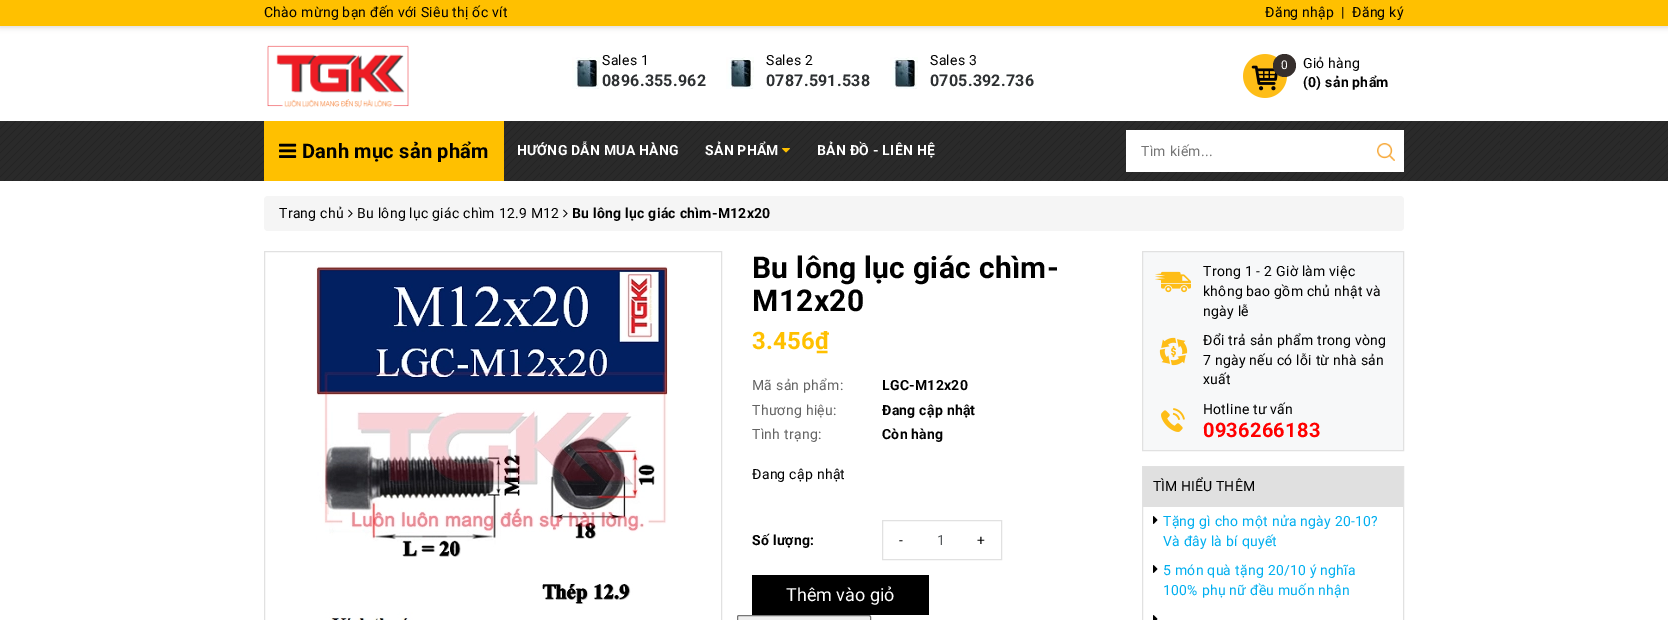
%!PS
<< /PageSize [1668 620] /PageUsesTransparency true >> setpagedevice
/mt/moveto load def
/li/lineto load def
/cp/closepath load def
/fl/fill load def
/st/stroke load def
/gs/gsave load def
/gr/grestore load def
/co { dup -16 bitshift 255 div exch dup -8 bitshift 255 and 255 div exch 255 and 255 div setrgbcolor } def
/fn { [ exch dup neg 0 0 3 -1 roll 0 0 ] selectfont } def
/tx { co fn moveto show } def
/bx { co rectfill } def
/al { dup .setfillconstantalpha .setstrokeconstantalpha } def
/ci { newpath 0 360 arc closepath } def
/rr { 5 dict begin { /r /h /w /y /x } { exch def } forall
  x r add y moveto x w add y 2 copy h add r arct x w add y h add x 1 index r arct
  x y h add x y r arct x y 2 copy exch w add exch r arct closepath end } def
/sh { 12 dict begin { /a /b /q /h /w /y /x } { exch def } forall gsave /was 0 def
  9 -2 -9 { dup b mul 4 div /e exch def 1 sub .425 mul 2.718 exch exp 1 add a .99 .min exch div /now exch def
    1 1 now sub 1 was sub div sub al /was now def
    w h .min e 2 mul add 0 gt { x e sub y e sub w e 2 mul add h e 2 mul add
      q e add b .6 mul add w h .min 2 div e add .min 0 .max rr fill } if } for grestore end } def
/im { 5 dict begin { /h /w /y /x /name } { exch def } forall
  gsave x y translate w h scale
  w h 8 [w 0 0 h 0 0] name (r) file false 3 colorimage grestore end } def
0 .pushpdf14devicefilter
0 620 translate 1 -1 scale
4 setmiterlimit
0 0 1668 620 16#FFFFFF bx
16#D4D1D1 co
0 1 1668 26 0 3 1 sh
0 0 1668 26 16#FFC000 bx
(media/1.raw) 267 45 142 63 im
(media/2.raw) 572 57 28 32 im
(media/2.raw) 726 57 28 32 im
(media/2.raw) 890 57 28 32 im
(media/3.raw) 1243 54 44 44 im
16#362F2D co
1284.5 65.5 11.5 ci fl
(media/4.raw) 0 121 1668 60 im
264 121 240 60 16#FFC000 bx
(media/5.raw) 279 143 18 15 im
(media/6.raw) 782 148 8 5 im
1126 130 278 42 16#FFFFFF bx
(media/7.raw) 1377 143 18 18 im
16#F5F5F5 co
264 196 1140 35 4 rr fl
(media/8.raw) 348 209 5 9 im
(media/8.raw) 563 209 5 9 im
16#E1E1E1 co
264.5 251.5 457 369 rectstroke
(media/9.raw) 316 266 352 354 im
882.5 520.5 119 39 rectstroke
752 575 177 40 16#000000 bx
16#EFEFEF co
737.5 615.5 133 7 1.5 rr gs fl gr
16#767676 co
st
16#F7F8F9 co
1142.5 251.5 mt 1403.5 251.5 li 1403.5 450.5 li 1142.5 450.5 li cp gs fl gr
16#E1E1E1 co
st
(media/10.raw) 1155 271 36 22 im
(media/11.raw) 1159 337 29 29 im
(media/12.raw) 1161 408 24 24 im
1142.5 466.5 261 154 rectstroke
1143 467 260 40 16#E0E0E0 bx
(media/13.raw) 1153 516 5 8 im
(media/13.raw) 1153 565 5 8 im
(media/14.raw) 1153 615 5 5 im
/Roboto-Regular 14 fn
16#000000 co
264 17 mt .25 0 (Chào mừng bạn đến với Siêu thị ốc vít) ashow
1265 17 mt .25 0 (Đăng nhập) ashow
1341 17 mt .25 0 (|) ashow
1352 17 mt .25 0 (Đăng ký) ashow
602 65 mt .25 0 (Sales 1) ashow
/Roboto-Bold 16 fn
16#2D3032 co
602 86 mt .25 0 (0896.355.962) ashow
/Roboto-Regular 14 fn
16#000000 co
766 65 mt .25 0 (Sales 2) ashow
/Roboto-Bold 16 fn
16#2D3032 co
766 86 mt .25 0 (0787.591.538) ashow
/Roboto-Regular 14 fn
16#000000 co
930 65 mt .25 0 (Sales 3) ashow
/Roboto-Bold 16 fn
16#2D3032 co
930 86 mt .25 0 (0705.392.736) ashow
/Roboto-Regular 14 fn
16#000000 co
1303 68 mt .25 0 (Giỏ hàng) ashow
/Roboto-Regular 12 fn
16#FFFFFF co
1281 69 mt .25 0 (0) ashow
/Roboto-Bold 14 fn
16#000000 co
1303 87 mt .25 0 (\(0\) sản phẩm) ashow
/Roboto-Bold 20 fn
302 158 mt .25 0 (Danh mục sản phẩm) ashow
/Roboto-Bold 14 fn
16#FFFFFF co
517 155 mt .25 0 (HƯỚNG DẪN MUA HÀNG) ashow
705 155 mt .25 0 (SẢN PHẨM) ashow
817 155 mt .25 0 (BẢN ĐỒ - LIÊN HỆ) ashow
/Roboto-Regular 14 fn
16#757575 co
1141 156 mt .25 0 (Tìm kiếm...) ashow
16#000000 co
279 218 mt .25 0 (Trang chủ) ashow
357 218 mt .25 0 (Bu lông lục giác chìm 12.9 M12) ashow
/Roboto-Bold 14 fn
572 218 mt .25 0 (Bu lông lục giác chìm-M12x20) ashow
/Roboto-Bold 30 fn
752 278 mt .3 0 (Bu lông lục giác chìm-) ashow
752 311 mt .3 0 (M12x20) ashow
/Roboto-Bold 24 fn
16#FFC000 co
752 349 mt .25 0 (3.456₫) ashow
/Roboto-Regular 14 fn
16#636363 co
752 390 mt .25 0 (Mã sản phẩm:) ashow
/Roboto-Bold 14 fn
16#000000 co
882 390 mt .25 0 (LGC-M12x20) ashow
/Roboto-Regular 14 fn
16#636363 co
752 415 mt .25 0 (Thương hiệu:) ashow
/Roboto-Bold 14 fn
16#000000 co
882 415 mt .25 0 (Đang cập nhật) ashow
/Roboto-Regular 14 fn
16#636363 co
752 439 mt .25 0 (Tình trạng:) ashow
/Roboto-Bold 14 fn
16#000000 co
882 439 mt .25 0 (Còn hàng) ashow
/Roboto-Regular 14 fn
752 479 mt .25 0 (Đang cập nhật) ashow
/Roboto-Bold 14 fn
752 545 mt .25 0 (Số lượng:) ashow
/Roboto-Regular 14 fn
899 545 mt .25 0 (-) ashow
16#55595C co
937 545 mt .25 0 (1) ashow
16#000000 co
977 545 mt .25 0 (+) ashow
(Thêm vào giỏ) 786 601 /Roboto-Regular 18 16#FFFFFF tx
/Roboto-Regular 14 fn
16#000000 co
1203 276 mt .25 0 (Trong 1 - 2 Giờ làm việc) ashow
1203 296 mt .25 0 (không bao gồm chủ nhật và) ashow
1203 316 mt .25 0 (ngày lễ) ashow
1203 345 mt .25 0 (Đổi trả sản phẩm trong vòng) ashow
1203 365 mt .25 0 (7 ngày nếu có lỗi từ nhà sản) ashow
1203 384 mt .25 0 (xuất) ashow
1203 414 mt .25 0 (Hotline tư vấn) ashow
/Roboto-Bold 20 fn
16#FF0000 co
1203 437 mt .25 0 (0936266183) ashow
/Roboto-Regular 14 fn
16#000000 co
1153 491 mt .1 0 (TÌM HIỂU THÊM) ashow
16#00AEEF co
1163 526 mt .25 0 (Tặng gì cho một nửa ngày 20-10?) ashow
1163 546 mt .25 0 (Và đây là bí quyết) ashow
1163 575 mt .25 0 (5 món quà tặng 20/10 ý nghĩa) ashow
1163 595 mt .25 0 (100% phụ nữ đều muốn nhận) ashow
.poppdf14devicefilter showpage
